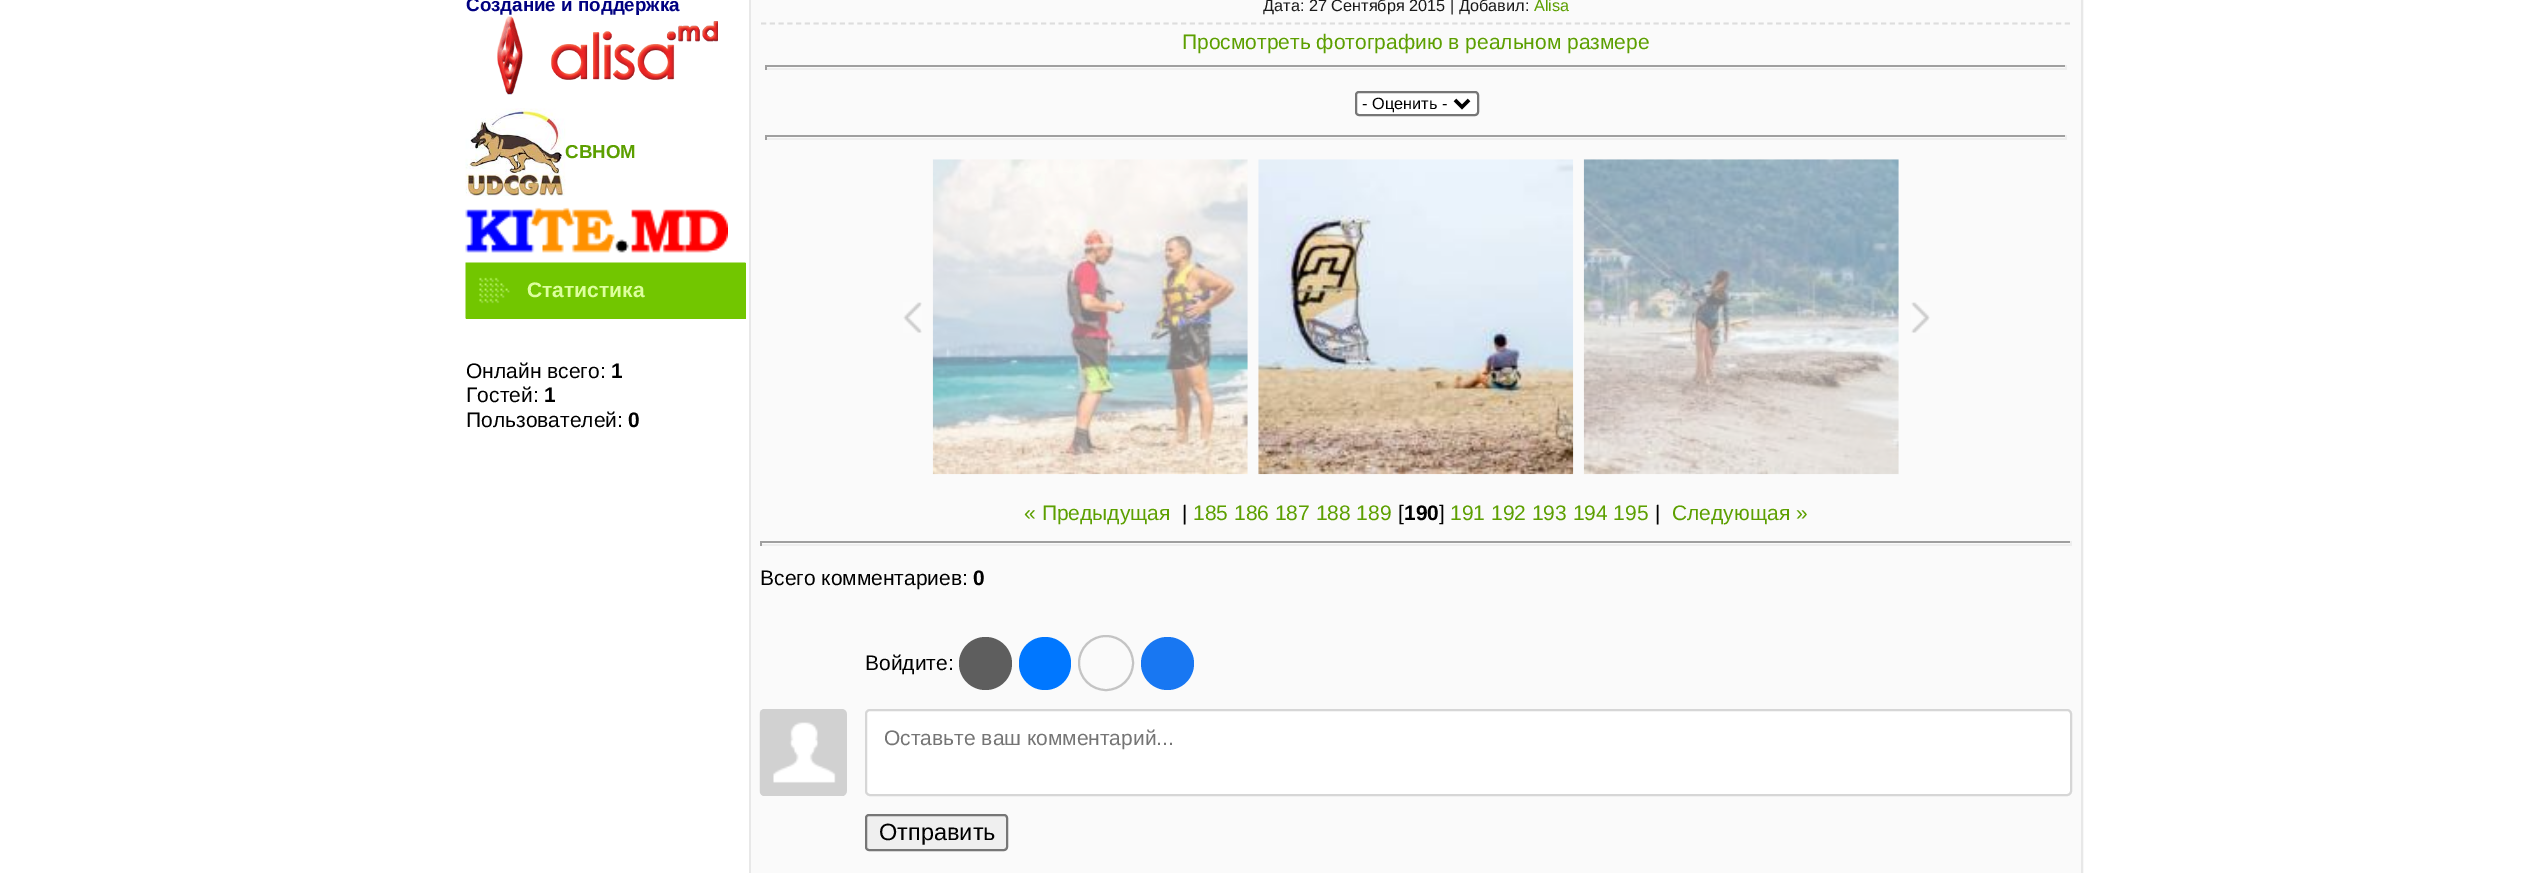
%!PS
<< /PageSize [2548 873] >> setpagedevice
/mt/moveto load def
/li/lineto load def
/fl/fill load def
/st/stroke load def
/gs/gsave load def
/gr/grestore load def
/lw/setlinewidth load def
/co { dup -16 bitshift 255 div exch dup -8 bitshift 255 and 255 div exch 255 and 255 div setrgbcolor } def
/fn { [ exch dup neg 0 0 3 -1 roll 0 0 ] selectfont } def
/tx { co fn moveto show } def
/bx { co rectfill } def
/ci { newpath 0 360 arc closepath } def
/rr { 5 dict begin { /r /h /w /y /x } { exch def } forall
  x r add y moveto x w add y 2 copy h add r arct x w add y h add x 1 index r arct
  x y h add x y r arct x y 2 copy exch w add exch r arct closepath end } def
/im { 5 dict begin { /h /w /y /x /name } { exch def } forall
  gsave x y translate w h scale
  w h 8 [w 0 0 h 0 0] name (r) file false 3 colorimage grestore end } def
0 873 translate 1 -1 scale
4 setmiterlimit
0 0 2548 873 16#FFFFFF bx
(media/1.raw) 497 16 221 79 im
(media/2.raw) 465 108 101 88 im
(media/3.raw) 465 207 263 46 im
466 263 280 56 16#72C600 bx
(media/4.raw) 465 262 281 57 im
16#E8E8E8 co
2 lw
750 -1 1332 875 rectstroke
751 0 1330 873 16#FAFAFA bx
16#DDDDDD co
1.8 lw
[5.25 3.5] 0 setdash
761 23.5 mt 2070 23.5 li st
765 65 1302 2 16#9F9F9F bx
2065 65 2 5 16#EEEEEE bx
765 68 1302 2 16#EEEEEE bx
765 65 2 5 16#9F9F9F bx
16#FFFFFF co
1356 92 122 23 3 rr gs fl gr
16#767676 co
2 lw
[] 0 setdash
st
16#000000 co
3.5 lw
1455 100 mt 1462 107 li 1469 100 li st
765 135 1302 2 16#9F9F9F bx
2065 135 2 5 16#EEEEEE bx
765 138 1302 2 16#EEEEEE bx
765 135 2 5 16#9F9F9F bx
(media/5.raw) 903 302 19 31 im
(media/6.raw) 932 159 316 316 im
(media/7.raw) 1258 159 316 316 im
(media/8.raw) 1583 159 316 316 im
(media/9.raw) 1911 302 19 31 im
760 541 1312 2 16#9F9F9F bx
2070 541 2 5 16#EEEEEE bx
760 544 1312 2 16#EEEEEE bx
760 541 2 5 16#9F9F9F bx
16#5E5E5E co
985.5 663.5 26.5 ci fl
16#0077FF co
1019 637 52 53 26 rr fl
16#C4C4C4 co
2 lw
1106 663 27 ci st
16#1877F2 co
1167.5 663.5 26.5 ci fl
(media/10.raw) 759 709 88 87 im
16#FFFFFF co
866 710 1205 85 4 rr gs fl gr
16#D6D6D6 co
st
16#EFEFEF co
866 815 141 35 3 rr gs fl gr
16#767676 co
st
(Создание и поддержка) 466 11 /LiberationSans-Bold 18.75 16#000080 tx
(СВНОМ) 565 158 /LiberationSans-Bold 18.75 16#5C9F00 tx
(Статистика) 527 297 /LiberationSans-Bold 21 16#DDFF9E tx
(Онлайн всего:) 466 378 /LiberationSans-Regular 21 16#000000 tx
(1) 611 378 /LiberationSans-Bold 21 16#000000 tx
(Гостей:) 466 402 /LiberationSans-Regular 21 16#000000 tx
(1) 544 402 /LiberationSans-Bold 21 16#000000 tx
(Пользователей:) 466 427 /LiberationSans-Regular 21 16#000000 tx
(0) 628 427 /LiberationSans-Bold 21 16#000000 tx
(Дата: 27 Сентября 2015 | Добавил:) 1263 11 /LiberationSans-Regular 16.3 16#1A1A1A tx
(Alisa) 1534 11 /LiberationSans-Regular 16.3 16#5C9F00 tx
(Просмотреть фотографию в реальном размере) 1182 49 /LiberationSans-Regular 21 16#5C9F00 tx
(- Оценить -) 1362 109 /LiberationSans-Regular 16.3 16#000000 tx
(« Предыдущая) 1024 520 /LiberationSans-Regular 21 16#5C9F00 tx
(|) 1182 520 /LiberationSans-Regular 21 16#000000 tx
(185 186 187 188 189) 1193 520 /LiberationSans-Regular 21 16#5C9F00 tx
([) 1398 520 /LiberationSans-Regular 21 16#000000 tx
(190) 1404 520 /LiberationSans-Bold 21 16#000000 tx
(]) 1439 520 /LiberationSans-Regular 21 16#000000 tx
(191 192 193 194 195) 1450 520 /LiberationSans-Regular 21 16#5C9F00 tx
(|) 1655 520 /LiberationSans-Regular 21 16#000000 tx
(Следующая ») 1672 520 /LiberationSans-Regular 21 16#5C9F00 tx
(Всего комментариев:) 760 585 /LiberationSans-Regular 21 16#000000 tx
(0) 973 585 /LiberationSans-Bold 21 16#000000 tx
(Войдите:) 865 670 /LiberationSans-Regular 21 16#000000 tx
(Оставьте ваш комментарий...) 884 745 /LiberationSans-Regular 21 16#757575 tx
(Отправить) 879 840 /LiberationSans-Regular 23.5 16#000000 tx
showpage
